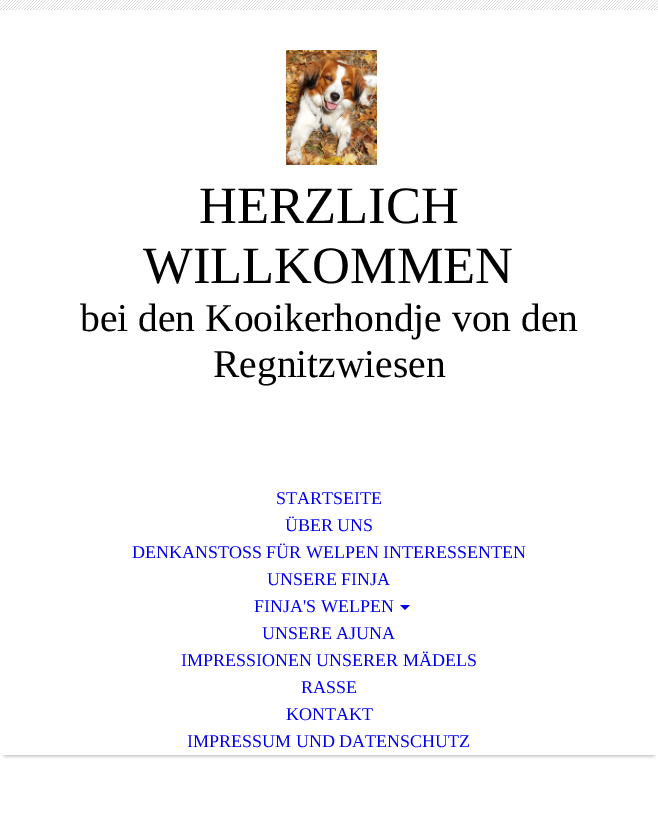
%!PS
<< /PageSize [658 814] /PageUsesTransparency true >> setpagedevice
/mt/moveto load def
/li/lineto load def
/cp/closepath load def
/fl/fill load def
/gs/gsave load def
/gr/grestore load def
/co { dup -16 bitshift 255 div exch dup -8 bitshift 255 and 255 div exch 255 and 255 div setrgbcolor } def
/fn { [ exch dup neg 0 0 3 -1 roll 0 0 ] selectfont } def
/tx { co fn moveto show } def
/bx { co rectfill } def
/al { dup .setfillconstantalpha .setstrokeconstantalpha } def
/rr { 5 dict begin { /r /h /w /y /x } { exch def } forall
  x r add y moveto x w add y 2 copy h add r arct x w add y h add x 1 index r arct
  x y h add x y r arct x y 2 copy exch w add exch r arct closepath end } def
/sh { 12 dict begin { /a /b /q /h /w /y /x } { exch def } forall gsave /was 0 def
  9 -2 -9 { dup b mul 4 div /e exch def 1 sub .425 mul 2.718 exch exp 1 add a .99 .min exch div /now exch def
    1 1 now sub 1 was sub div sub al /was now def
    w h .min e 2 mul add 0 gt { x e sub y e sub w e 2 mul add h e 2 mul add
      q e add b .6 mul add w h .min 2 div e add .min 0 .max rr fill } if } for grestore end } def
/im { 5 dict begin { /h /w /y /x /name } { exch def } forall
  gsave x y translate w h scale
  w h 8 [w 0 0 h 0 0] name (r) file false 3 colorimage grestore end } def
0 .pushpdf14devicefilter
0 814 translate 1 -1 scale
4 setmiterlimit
0 0 658 814 16#FFFFFF bx
(media/1.raw) 0 0 658 10 im
(media/2.raw) 286 50 91 115 im
gs
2 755 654 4 rectclip
16#000000 co
5 475 648 280 0 2.5 .4 sh
gr
16#0000EE co
400 605 mt 410 605 li 405 610 li cp fl
(HERZLICH) 199 223 /LiberationSerif-Regular 52.5 16#000000 tx
(WILLKOMMEN) 143 283 /LiberationSerif-Regular 52.5 16#000000 tx
(bei den Kooikerhondje von den) 80 331 /LiberationSerif-Regular 39.5 16#000000 tx
(Regnitzwiesen) 213 377 /LiberationSerif-Regular 39.5 16#000000 tx
(STARTSEITE) 276 504 /LiberationSerif-Regular 18 16#0000EE tx
(ÜBER UNS) 285 531 /LiberationSerif-Regular 18 16#0000EE tx
(DENKANSTOSS FÜR WELPEN INTERESSENTEN) 132 558 /LiberationSerif-Regular 18 16#0000EE tx
(UNSERE FINJA) 267 585 /LiberationSerif-Regular 18 16#0000EE tx
(FINJA'S WELPEN) 254 612 /LiberationSerif-Regular 18 16#0000EE tx
(UNSERE AJUNA) 262 639 /LiberationSerif-Regular 18 16#0000EE tx
(IMPRESSIONEN UNSERER MÄDELS) 181 666 /LiberationSerif-Regular 18 16#0000EE tx
(RASSE) 301 693 /LiberationSerif-Regular 18 16#0000EE tx
(KONTAKT) 286 720 /LiberationSerif-Regular 18 16#0000EE tx
(IMPRESSUM UND DATENSCHUTZ) 187 747 /LiberationSerif-Regular 18 16#0000EE tx
.poppdf14devicefilter showpage
